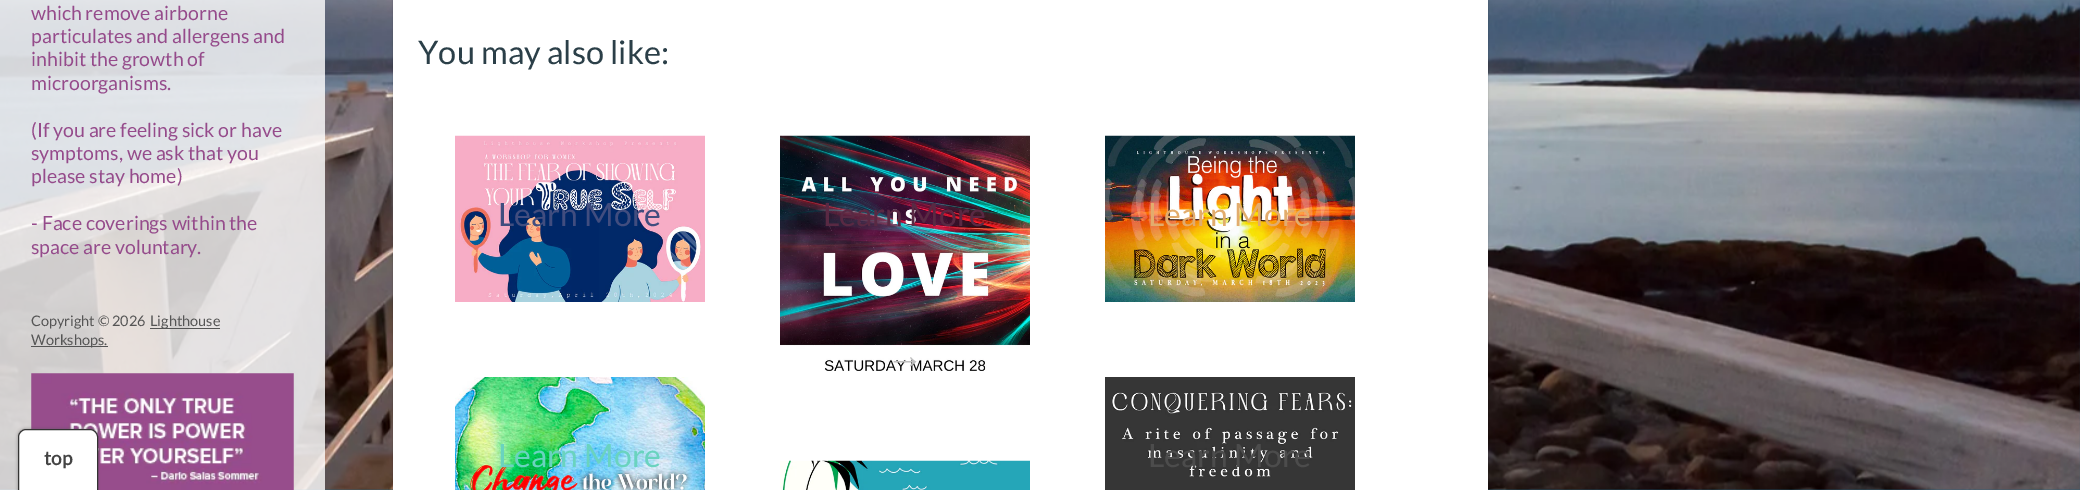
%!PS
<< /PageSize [2080 490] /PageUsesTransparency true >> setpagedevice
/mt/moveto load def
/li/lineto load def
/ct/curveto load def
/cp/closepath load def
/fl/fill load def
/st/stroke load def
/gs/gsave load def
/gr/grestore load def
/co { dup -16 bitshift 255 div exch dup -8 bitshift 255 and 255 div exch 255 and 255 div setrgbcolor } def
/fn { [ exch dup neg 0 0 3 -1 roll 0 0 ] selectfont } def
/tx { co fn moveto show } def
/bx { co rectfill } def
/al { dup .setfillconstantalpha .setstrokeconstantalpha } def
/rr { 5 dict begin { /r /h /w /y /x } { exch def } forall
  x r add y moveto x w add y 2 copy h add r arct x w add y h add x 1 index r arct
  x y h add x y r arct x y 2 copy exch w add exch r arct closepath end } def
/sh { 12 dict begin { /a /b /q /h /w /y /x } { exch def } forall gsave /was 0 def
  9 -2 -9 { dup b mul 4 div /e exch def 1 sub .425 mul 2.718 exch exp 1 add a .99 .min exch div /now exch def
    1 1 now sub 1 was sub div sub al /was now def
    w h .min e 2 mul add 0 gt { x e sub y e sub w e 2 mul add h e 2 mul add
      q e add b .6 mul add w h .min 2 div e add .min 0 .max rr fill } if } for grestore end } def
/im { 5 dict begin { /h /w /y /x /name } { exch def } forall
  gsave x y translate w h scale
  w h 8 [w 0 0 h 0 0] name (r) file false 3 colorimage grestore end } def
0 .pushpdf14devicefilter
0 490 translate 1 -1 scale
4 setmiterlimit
0 0 2080 490 16#1B6484 bx
(media/1.raw) 0 0 2080 490 im
0.8 al
0 0 325 490 16#FFFFFF bx
1 al
150 328 70 1 16#555555 bx
31 346 77 1 16#555555 bx
(media/2.raw) 31 373 263 117 im
16#000000 co
393 -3 1095 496 0 1 .2 sh
393 0 1095 490 16#FFFFFF bx
(media/3.raw) 455 135 250 167 im
(media/4.raw) 780 135 250 236 im
(media/5.raw) 1105 135 250 167 im
(media/6.raw) 455 377 250 113 im
(media/7.raw) 1105 377 250 113 im
(media/8.raw) 780 460 250 30 im
16#555555 co
19 430 77 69 6 2 1 sh
16#FFFFFF co
26 429.5 mt 90 429.5 li 94 429.5 97.5 433 97.5 437 ct 97.5 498.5 li 18.5 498.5 li 18.5 437 li 18.5 433 22 429.5 26 429.5 ct cp gs fl gr
16#333333 co
st
(which remove airborne) 31 20 /Lato-Regular 19.5 16#954B8B tx
(particulates and allergens and) 31 43 /Lato-Regular 19.5 16#954B8B tx
(inhibit the growth of) 31 66 /Lato-Regular 19.5 16#954B8B tx
(microorganisms.) 31 90 /Lato-Regular 19.5 16#954B8B tx
(\(If you are feeling sick or have) 31 137 /Lato-Regular 19.5 16#954B8B tx
(symptoms, we ask that you) 31 160 /Lato-Regular 19.5 16#954B8B tx
(please stay home\)) 31 183 /Lato-Regular 19.5 16#954B8B tx
(- Face coverings within the) 31 230 /Lato-Regular 19.5 16#954B8B tx
(space are voluntary.) 31 254 /Lato-Regular 19.5 16#954B8B tx
(Copyright © 2026) 31 326 /Lato-Regular 14.5 16#555555 tx
(Lighthouse) 150 326 /Lato-Regular 14.5 16#555555 tx
(Workshops.) 31 345 /Lato-Regular 14.5 16#555555 tx
(You may also like:) 418 64 /Lato-Regular 32.5 16#2B3F48 tx
(Learn More) 498 226 /Lato-Regular 32 16#414D7F tx
(Learn More) 823 226 /Lato-Regular 32 16#592943 tx
(→) 886 368 /LiberationSerif-Regular 38 16#BFBFBF tx
(Learn More) 1148 226 /Lato-Regular 32 16#E2AC6D tx
(Learn More) 498 467 /Lato-Regular 32 16#6AD3BF tx
(Learn More) 1148 467 /Lato-Regular 32 16#4C4C4C tx
(top) 44 465 /Lato-Bold 19 16#444444 tx
.poppdf14devicefilter showpage
